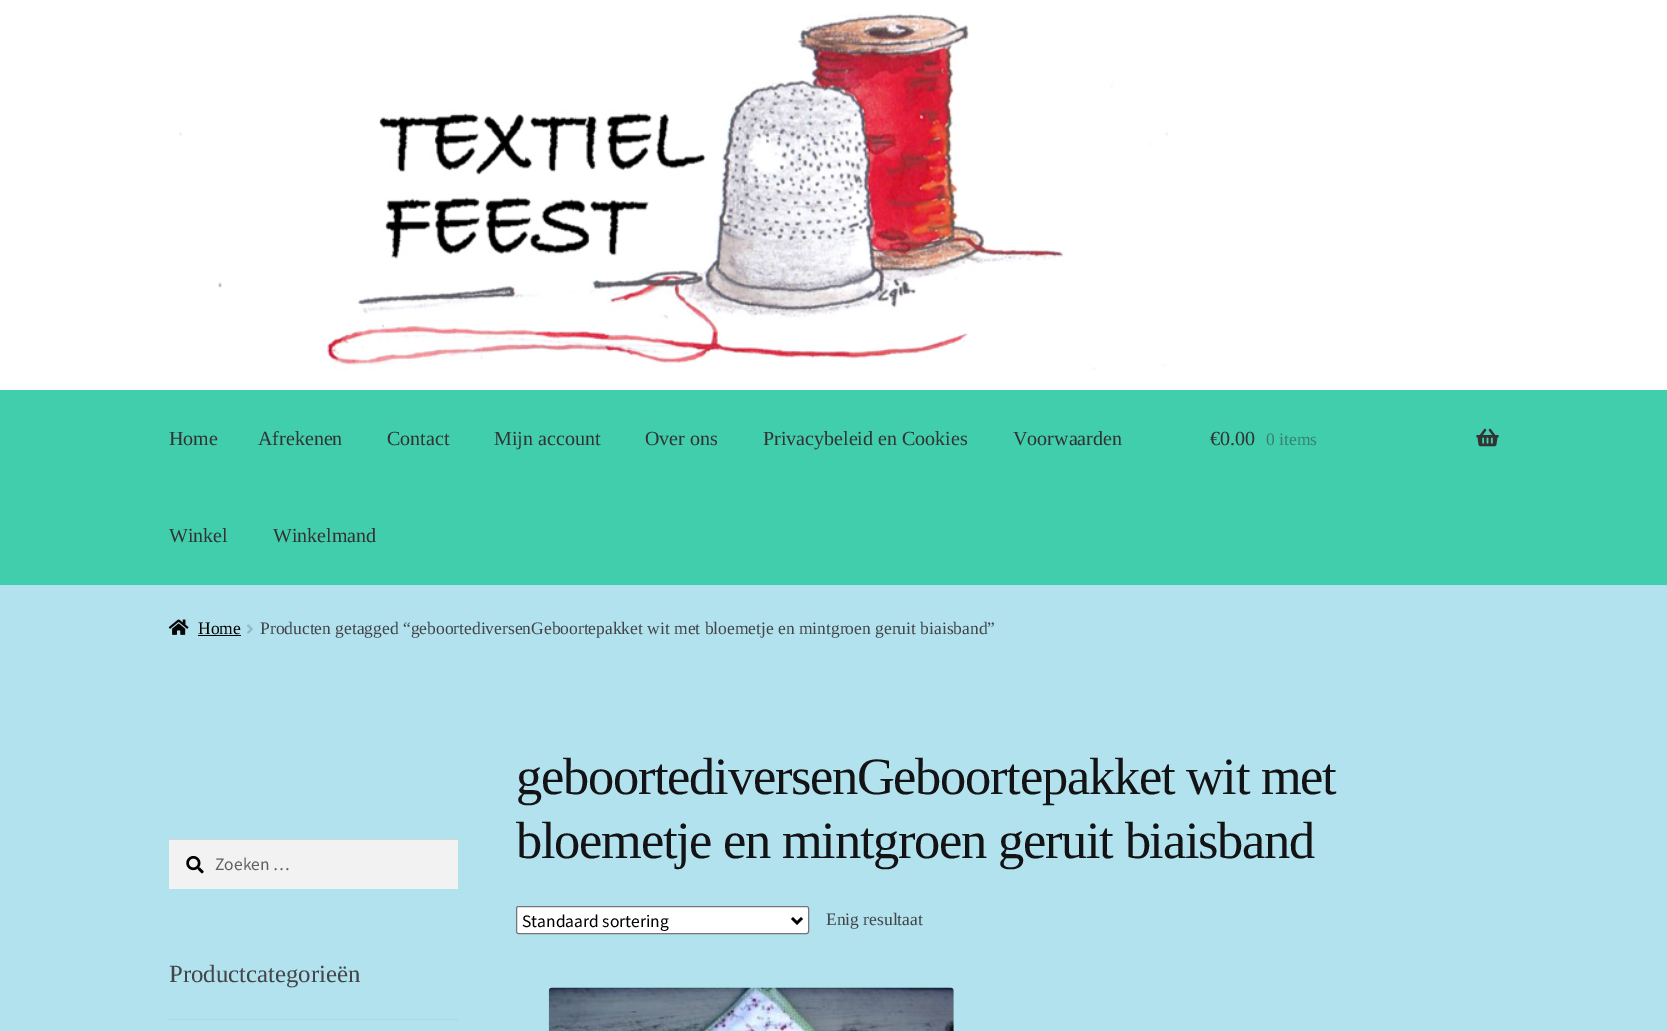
%!PS
<< /PageSize [1667 1031] >> setpagedevice
/mt/moveto load def
/li/lineto load def
/fl/fill load def
/st/stroke load def
/gs/gsave load def
/gr/grestore load def
/lw/setlinewidth load def
/co { dup -16 bitshift 255 div exch dup -8 bitshift 255 and 255 div exch 255 and 255 div setrgbcolor } def
/fn { [ exch dup neg 0 0 3 -1 roll 0 0 ] selectfont } def
/tx { co fn moveto show } def
/bx { co rectfill } def
/rr { 5 dict begin { /r /h /w /y /x } { exch def } forall
  x r add y moveto x w add y 2 copy h add r arct x w add y h add x 1 index r arct
  x y h add x y r arct x y 2 copy exch w add exch r arct closepath end } def
/im { 5 dict begin { /h /w /y /x /name } { exch def } forall
  gsave x y translate w h scale
  w h 8 [w 0 0 h 0 0] name (r) file false 3 colorimage grestore end } def
0 1031 translate 1 -1 scale
4 setmiterlimit
0 0 1667 1031 16#B1E2ED bx
0 0 1667 390 16#FFFFFF bx
(media/1.raw) 179 13 989 357 im
0 390 1667 195 16#40CEAD bx
(media/2.raw) 1476 428 23 19 im
(media/3.raw) 168 619 21 16 im
198 635 43 1 16#050505 bx
(media/4.raw) 247 624 6 10 im
169 840 289 49 16#F2F2F2 bx
(media/5.raw) 186 855 18 19 im
169 839 289 1 16#D4D4D4 bx
169 1019 289 1 16#A8D7E1 bx
16#FFFFFF co
516.5 906.5 292 27 2 rr gs fl gr
16#767676 co
st
16#000000 co
2.5 lw
792 918 mt 797 923 li 802 918 li st
(media/6.raw) 548 987 406 44 im
(Home) 169 445 /LiberationSerif-Regular 20 16#333333 tx
(Afrekenen) 258 445 /LiberationSerif-Regular 20 16#333333 tx
(Contact) 387 445 /LiberationSerif-Regular 20 16#333333 tx
(Mijn account) 494 445 /LiberationSerif-Regular 20 16#333333 tx
(Over ons) 645 445 /LiberationSerif-Regular 20 16#333333 tx
(Privacybeleid en Cookies) 763 445 /LiberationSerif-Regular 20 16#333333 tx
(Voorwaarden) 1013 445 /LiberationSerif-Regular 20 16#333333 tx
(Winkel) 169 542 /LiberationSerif-Regular 20 16#333333 tx
(Winkelmand) 273 542 /LiberationSerif-Regular 20 16#333333 tx
(€0.00) 1210 445 /LiberationSerif-Regular 20 16#333333 tx
(0 items) 1266 445 /LiberationSerif-Regular 17.5 16#3A8170 tx
(Home) 198 634 /LiberationSerif-Regular 17.5 16#000000 tx
(Producten getagged “geboortediversenGeboortepakket wit met bloemetje en mintgroen geruit biaisband”) 260 634 /LiberationSerif-Regular 17.5 16#43454B tx
(Zoeken …) 215 870 /SourceSansPro-Regular 17.5 16#616161 tx
(Productcategorieën) 169 982 /LiberationSerif-Regular 24.75 16#43454B tx
/LiberationSerif-Regular 52.4 fn
16#131315 co
516 794 mt -1.25 0 (geboortediversenGeboortepakket wit met) ashow
516 858 mt -1.25 0 (bloemetje en mintgroen geruit biaisband) ashow
(Standaard sortering) 522 927 /SourceSansPro-Regular 17.5 16#000000 tx
(Enig resultaat) 826 925 /LiberationSerif-Regular 17.5 16#43454B tx
showpage
